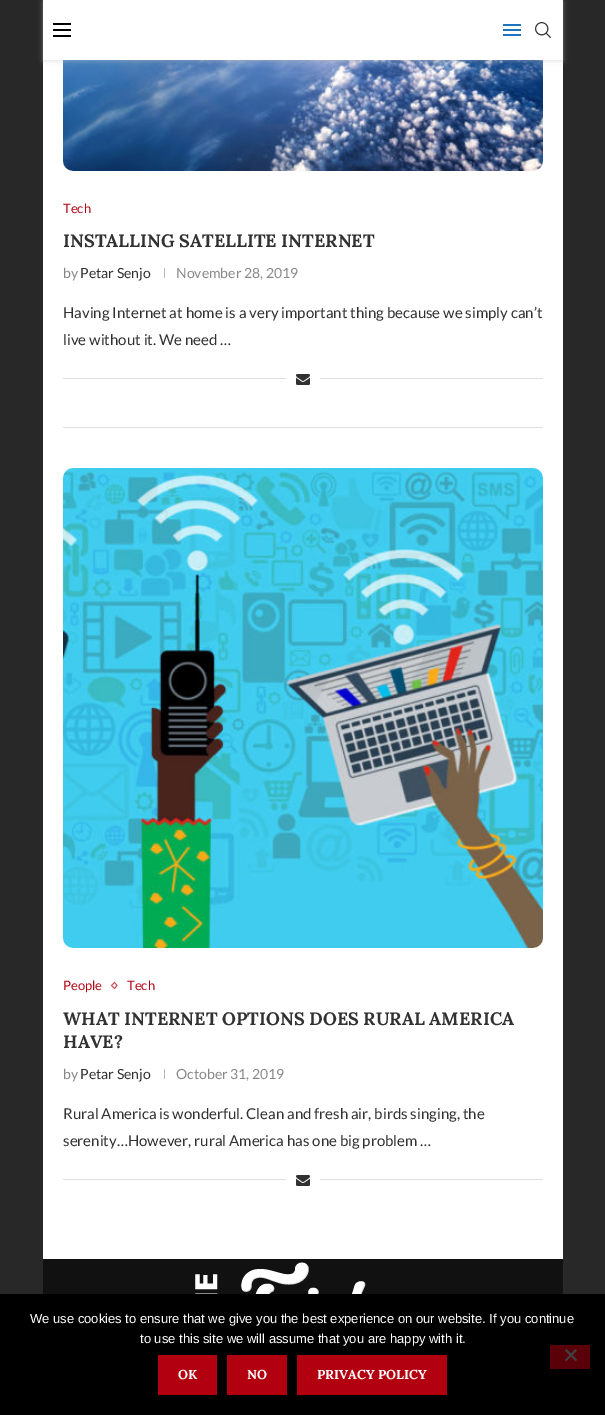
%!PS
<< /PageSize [605 1415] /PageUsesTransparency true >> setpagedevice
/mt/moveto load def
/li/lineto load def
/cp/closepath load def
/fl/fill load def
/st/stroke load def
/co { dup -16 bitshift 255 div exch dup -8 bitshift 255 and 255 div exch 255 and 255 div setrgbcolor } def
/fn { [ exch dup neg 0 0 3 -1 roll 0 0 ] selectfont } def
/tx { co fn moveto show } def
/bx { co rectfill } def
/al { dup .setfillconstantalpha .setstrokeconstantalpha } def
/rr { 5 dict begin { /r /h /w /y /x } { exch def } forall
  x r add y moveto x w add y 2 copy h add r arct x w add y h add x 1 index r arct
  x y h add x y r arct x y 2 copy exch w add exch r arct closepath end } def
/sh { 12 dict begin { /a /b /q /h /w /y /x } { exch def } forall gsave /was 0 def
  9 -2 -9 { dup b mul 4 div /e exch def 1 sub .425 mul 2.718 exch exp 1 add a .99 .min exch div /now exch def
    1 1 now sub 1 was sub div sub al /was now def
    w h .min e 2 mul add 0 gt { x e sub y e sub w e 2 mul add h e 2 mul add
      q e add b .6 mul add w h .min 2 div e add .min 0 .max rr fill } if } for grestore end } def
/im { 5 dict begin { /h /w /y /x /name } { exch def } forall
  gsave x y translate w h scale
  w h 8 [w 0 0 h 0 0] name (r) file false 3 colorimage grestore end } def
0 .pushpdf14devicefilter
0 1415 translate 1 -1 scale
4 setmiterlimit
0 0 605 1415 16#282828 bx
43 60 520 1199 16#FFFFFF bx
16#F5F5F5 co
63 -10 480 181 10 rr fl
(media/2.raw) 63 60 480 111 im
16#BEBEBE co
43 1 520 60 0 2.5 .46 sh
43 0 520 60 16#FFFFFF bx
53 23 18 2 16#000000 bx
53 29 18 2 16#000000 bx
53 35 18 2 16#000000 bx
503 24 18 2 16#1E73BE bx
503 34 18 2 16#1E73BE bx
503 29 18 2 16#1E73BE bx
(media/1.raw) 535 22 16 16 im
63 427 480 1 16#DEDEDE bx
164 268 1 10 16#B8B8B8 bx
63 378 480 1 16#DEDEDE bx
286 378 34 1 16#FFFFFF bx
(media/3.raw) 296 374 14 11 im
16#F5F5F5 co
63 468 480 480 10 rr fl
(media/4.raw) 63 468 480 480 im
16#CE5964 co
114.5 982.5 mt 117 985.5 li 114.5 988.5 li 111.5 985.5 li cp st
164 1069 1 10 16#B8B8B8 bx
63 1179 480 1 16#DEDEDE bx
286 1179 34 1 16#FFFFFF bx
(media/3.raw) 296 1175 14 11 im
43 1259 520 35 16#111111 bx
(media/5.raw) 195 1262 171 32 im
0 1294 605 121 16#000000 bx
550 1345 40 24 16#5A0008 bx
16#404040 co
575.5 1349 mt 577 1350.5 li 566.5 1361 li 565 1360 li cp fl
565 1350.5 mt 566.5 1349 li 577 1360 li 575.5 1361 li cp fl
158 1355 59 40 16#B30010 bx
227 1355 60 40 16#B30010 bx
297 1355 150 40 16#B30010 bx
(Tech) 63 213 /Lato-Regular 13 16#B30010 tx
(INSTALLING SATELLITE INTERNET) 63 247 /Lora-Bold 18 16#313131 tx
(by) 63 278 /Lato-Regular 14 16#888888 tx
(Petar Senjo) 80 278 /Lato-Regular 14 16#313131 tx
(November 28, 2019) 176 278 /Lato-Regular 14 16#888888 tx
(Having Internet at home is a very important thing because we simply can’t) 63 318 /Lato-Regular 15 16#313131 tx
(live without it. We need …) 63 345 /Lato-Regular 15 16#313131 tx
(People) 63 990 /Lato-Regular 13 16#B30010 tx
(Tech) 127 990 /Lato-Regular 13 16#B30010 tx
(WHAT INTERNET OPTIONS DOES RURAL AMERICA) 63 1025 /Lora-Bold 18 16#313131 tx
(HAVE?) 63 1048 /Lora-Bold 18 16#313131 tx
(by) 63 1079 /Lato-Regular 14 16#888888 tx
(Petar Senjo) 80 1079 /Lato-Regular 14 16#313131 tx
(October 31, 2019) 176 1079 /Lato-Regular 14 16#888888 tx
(Rural America is wonderful. Clean and fresh air, birds singing, the) 63 1119 /Lato-Regular 15 16#313131 tx
(serenity…However, rural America has one big problem …) 63 1146 /Lato-Regular 15 16#313131 tx
(We use cookies to ensure that we give you the best experience on our website. If you continue) 30 1323 /LiberationSans-Regular 13 16#FFFFFF tx
(to use this site we will assume that you are happy with it.) 140 1343 /LiberationSans-Regular 13 16#FFFFFF tx
(OK) 178 1379 /Lora-Bold 13 16#FFFFFF tx
(NO) 247 1379 /Lora-Bold 13 16#FFFFFF tx
(PRIVACY POLICY) 317 1379 /Lora-Bold 13 16#FFFFFF tx
.poppdf14devicefilter showpage
